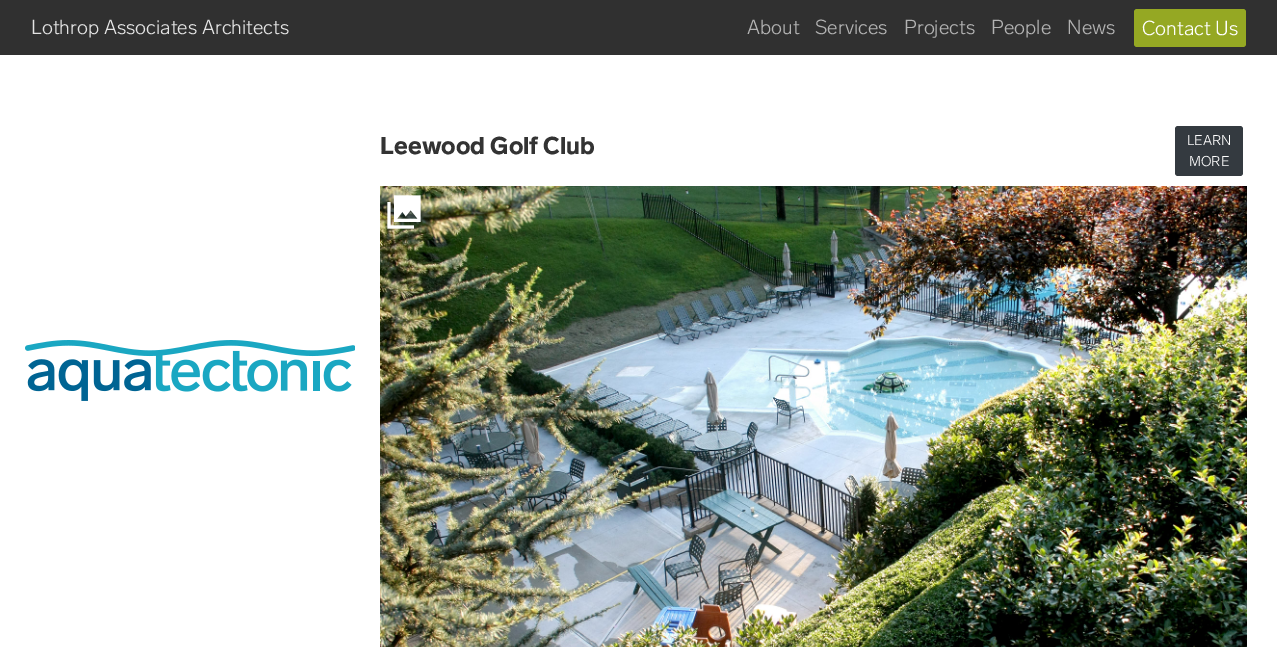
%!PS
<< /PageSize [1277 647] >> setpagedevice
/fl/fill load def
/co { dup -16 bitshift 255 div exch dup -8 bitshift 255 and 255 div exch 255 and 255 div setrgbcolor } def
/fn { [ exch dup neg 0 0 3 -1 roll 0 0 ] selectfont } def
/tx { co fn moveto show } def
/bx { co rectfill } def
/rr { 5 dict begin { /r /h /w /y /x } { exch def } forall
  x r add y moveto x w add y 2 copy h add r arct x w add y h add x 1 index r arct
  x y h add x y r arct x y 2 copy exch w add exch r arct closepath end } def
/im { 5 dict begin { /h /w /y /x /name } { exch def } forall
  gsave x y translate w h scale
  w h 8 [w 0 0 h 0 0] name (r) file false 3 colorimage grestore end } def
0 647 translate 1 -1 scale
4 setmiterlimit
0 0 1277 647 16#FFFFFF bx
0 0 1277 55 16#303030 bx
16#95A823 co
1134 9 112 38 3 rr fl
16#343A40 co
1175 126 68 50 3 rr fl
(media/1.raw) 380 186 867 461 im
(media/2.raw) 387 195 34 34 im
(media/3.raw) 25 340 330 61 im
(Lothrop Associates Architects) 31 34 /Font-Light 20 16#E3E3E3 tx
(About) 747 34 /Font-Light 20 16#B2B2B2 tx
(Services) 815 34 /Font-Light 20 16#B2B2B2 tx
(Projects) 904 34 /Font-Light 20 16#B2B2B2 tx
(People) 991 34 /Font-Light 20 16#B2B2B2 tx
(News) 1067 34 /Font-Light 20 16#B2B2B2 tx
(Contact Us) 1142 35 /Font-Light 20 16#FFFFFF tx
(Leewood Golf Club) 380 154 /Font-Black 24 16#333333 tx
(LEARN) 1187 145 /Font-Light 14 16#FFFFFF tx
(MORE) 1189 166 /Font-Light 14 16#FFFFFF tx
showpage
